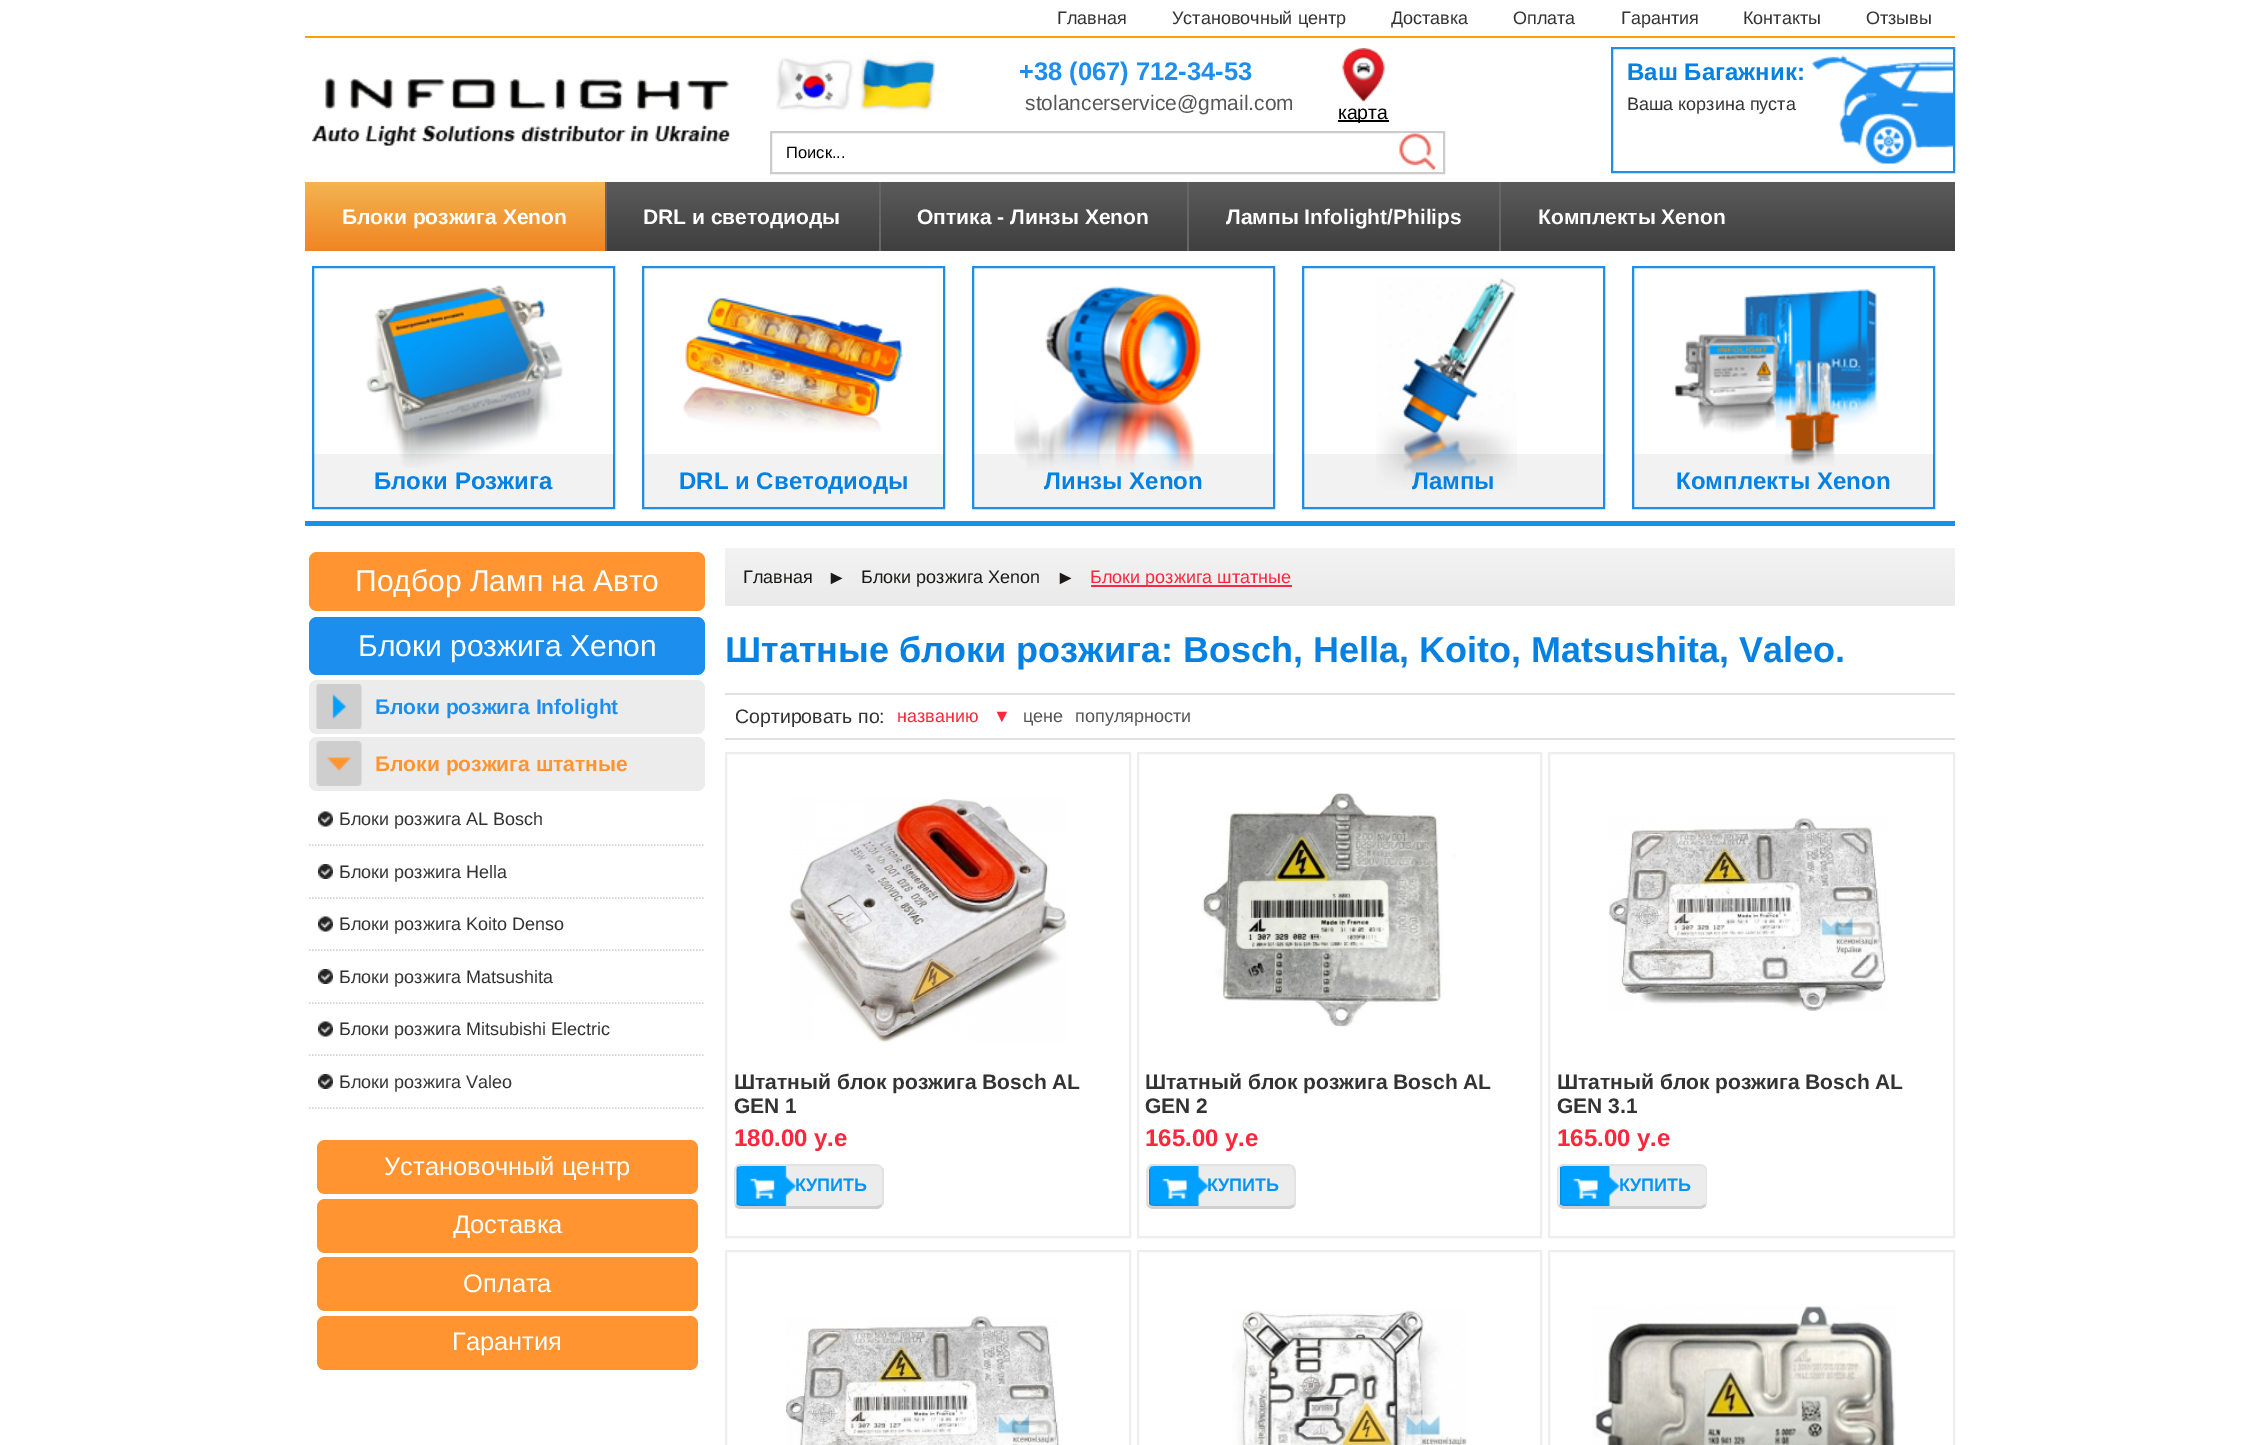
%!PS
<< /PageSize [2258 1445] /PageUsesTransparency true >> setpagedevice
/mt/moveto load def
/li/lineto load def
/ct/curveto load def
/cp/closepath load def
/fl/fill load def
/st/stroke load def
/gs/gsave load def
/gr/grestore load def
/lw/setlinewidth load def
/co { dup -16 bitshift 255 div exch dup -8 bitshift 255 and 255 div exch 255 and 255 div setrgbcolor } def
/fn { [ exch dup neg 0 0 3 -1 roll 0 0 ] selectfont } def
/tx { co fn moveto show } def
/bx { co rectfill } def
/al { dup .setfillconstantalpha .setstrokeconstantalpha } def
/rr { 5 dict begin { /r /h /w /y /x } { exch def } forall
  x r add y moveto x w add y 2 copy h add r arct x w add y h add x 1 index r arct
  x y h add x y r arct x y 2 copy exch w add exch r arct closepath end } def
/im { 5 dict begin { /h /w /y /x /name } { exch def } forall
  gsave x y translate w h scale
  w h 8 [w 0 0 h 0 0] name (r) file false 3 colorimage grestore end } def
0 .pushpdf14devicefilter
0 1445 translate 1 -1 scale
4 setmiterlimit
0 0 2258 1445 16#FFFFFF bx
305 36 1650 2 16#FF9C00 bx
(media/1.raw) 312 77 418 69 im
(media/2.raw) 776 55 159 59 im
(media/3.raw) 1342 48 43 54 im
1338 120 51 2 16#000000 bx
16#CCCCCC co
2 lw
771 132 673 41 rectstroke
(media/4.raw) 1399 133 37 38 im
16#1C8EEE co
1612 48 342 124 rectstroke
(media/5.raw) 1812 55 141 109 im
gs 607 182 mt 1955 182 li 1955 251 li 607 251 li cp clip newpath
<< /ShadingType 2 /ColorSpace /DeviceRGB /Coords [1130 181 1130 251] /Extend [true true] /Function << /FunctionType 2 /Domain [0 1] /C0 [.357 .357 .357] /C1 [.247 .247 .247] /N 1 >> >> shfill gr
gs 305 182 mt 605 182 li 605 251 li 305 251 li cp clip newpath
<< /ShadingType 2 /ColorSpace /DeviceRGB /Coords [455 181 455 251] /Extend [true true] /Function << /FunctionType 2 /Domain [0 1] /C0 [.953 .71 .322] /C1 [.941 .522 .133] /N 1 >> >> shfill gr
605 182 2 69 16#666666 bx
879 182 2 69 16#666666 bx
1187 182 2 69 16#666666 bx
1499 182 2 69 16#666666 bx
305 521 1650 5 16#1C8EEE bx
313 267 301 241 rectstroke
(media/6.raw) 366 285 197 183 im
0.05 al
313 454 301 53 16#000000 bx
1 al
16#1C8EEE co
643 267 301 241 rectstroke
(media/7.raw) 681 297 223 135 im
0.05 al
643 454 301 53 16#000000 bx
1 al
16#1C8EEE co
973 267 301 241 rectstroke
(media/8.raw) 1014 286 188 185 im
0.05 al
973 454 301 53 16#000000 bx
1 al
16#1C8EEE co
1303 267 301 241 rectstroke
(media/9.raw) 1376 277 141 213 im
0.05 al
1303 454 301 53 16#000000 bx
1 al
16#1C8EEE co
1633 267 301 241 rectstroke
(media/10.raw) 1674 289 204 177 im
0.05 al
1633 454 301 53 16#000000 bx
1 al
16#FF9431 co
309 552 396 59 8 rr fl
16#1C8EEE co
309 617 396 58 8 rr fl
16#ECECEC co
309 680 396 54 8 rr fl
(media/11.raw) 316 684 46 45 im
309 737 396 54 8 rr fl
(media/12.raw) 316 741 46 45 im
(media/13.raw) 318 811 15 16 im
16#D3D3D3 co
1.5 lw
[1.5 1.5] 0 setdash
309 845 mt 705 845 li st
(media/14.raw) 318 864 15 15 im
309 898 mt 705 898 li st
(media/13.raw) 318 916 15 16 im
309 950 mt 705 950 li st
(media/14.raw) 318 969 15 15 im
309 1003 mt 705 1003 li st
(media/13.raw) 318 1021 15 16 im
309 1055 mt 705 1055 li st
(media/14.raw) 318 1074 15 15 im
309 1108 mt 705 1108 li st
16#FF9431 co
317 1140 381 54 8 rr fl
317 1199 381 54 8 rr fl
317 1257 381 54 8 rr fl
317 1316 381 54 8 rr fl
gs 725 548 mt 1955 548 li 1955 606 li 725 606 li cp clip newpath
<< /ShadingType 2 /ColorSpace /DeviceRGB /Coords [1340 547 1340 606] /Extend [true true] /Function << /FunctionType 2 /Domain [0 1] /C0 [.953 .953 .953] /C1 [.918 .918 .918] /N 1 >> >> shfill gr
1091 585 201 2 16#FC273C bx
725 693 1230 2 16#E0E0E0 bx
725 738 1230 2 16#E0E0E0 bx
16#EEEEEE co
2 lw
[] 0 setdash
726 753 404 484 rectstroke
(media/15.raw) 789 798 279 245 im
16#ECECEC co
741 1166 mt 876 1166 li 879 1166 882 1168 882 1172 ct 882 1202 li 882 1204 879 1206 876 1206 ct 741 1206 li 738 1206 735 1204 735 1202 ct 735 1172 li 735 1168 738 1166 741 1166 ct cp fl
(media/16.raw) 736 1164 61 42 im
16#E2E2E2 co
741 1164 mt 739 1164 737 1165 736 1166 ct 737 1167 li 738 1166 740 1166 741 1166 ct 876 1166 li 877 1166 879 1166 880 1167 ct 881 1166 li 880 1165 878 1164 876 1164 ct cp fl
884 1204 mt 882 1206 li 881 1204 li 882 1202 li 882 1172 li 882 1170 881 1168 880 1167 ct 881 1166 li 884 1169 li cp fl
16#D0D0D0 co
741 1209 mt 876 1209 li 878 1209 881 1208 882 1206 ct 881 1204 li 880 1205 878 1206 876 1206 ct 741 1206 li 739 1206 737 1205 736 1204 ct 735 1206 li 736 1208 738 1209 741 1209 ct cp fl
16#E2E2E2 co
736 1166.5 mt 734.5 1167.5 734 1169.5 734 1172 ct 734 1202 li 734 1203.5 734.5 1205 735 1206 ct 736 1204 li 735.5 1203.5 735 1202.5 735 1202 ct 735 1172 li 735 1170 736 1168.5 737 1167.5 ct cp fl
16#EEEEEE co
1138 753 403 484 rectstroke
(media/17.raw) 1202 793 254 235 im
16#ECECEC co
1154 1166 mt 1288 1166 li 1292 1166 1294 1168 1294 1172 ct 1294 1202 li 1294 1204 1292 1206 1288 1206 ct 1154 1206 li 1150 1206 1148 1204 1148 1202 ct 1148 1172 li 1148 1168 1150 1166 1154 1166 ct cp fl
(media/18.raw) 1149 1164 60 44 im
16#E2E2E2 co
1154 1164 mt 1152 1164 1150 1165 1148 1166 ct 1150 1168 li 1150 1166 1152 1166 1154 1166 ct 1288 1166 li 1290 1166 1292 1166 1292 1168 ct 1294 1166 li 1292 1165 1290 1164 1288 1164 ct cp fl
1296 1202 mt 1296 1172 li 1296 1170 1295 1168 1294 1166 ct 1292 1168 li 1295 1170 1294 1184 1294 1187 ct 1294 1190 1295 1201 1293 1204 ct 1295 1206 li 1296 1205 1296 1204 1296 1202 ct cp fl
16#D0D0D0 co
1154 1209 mt 1288 1209 li 1291 1209 1293 1208 1295 1206 ct 1293 1204 li 1293 1205 1291 1206 1288 1206 ct 1154 1206 li 1151 1206 1149 1205 1149 1204 ct 1147 1206 li 1149 1208 1151 1209 1154 1209 ct cp fl
16#E2E2E2 co
1146 1172 mt 1146 1202 li 1146 1204 1146 1205 1147 1206 ct 1149 1204 li 1147 1201 1148 1190 1148 1187 ct 1148 1184 1147 1170 1150 1168 ct 1148 1166 li 1147 1168 1146 1170 1146 1172 ct cp fl
16#EEEEEE co
1549 753 405 484 rectstroke
(media/19.raw) 1609 817 277 194 im
16#ECECEC co
1564 1166 mt 1700 1166 li 1703 1166 1706 1168 1706 1172 ct 1706 1202 li 1706 1204 1703 1206 1700 1206 ct 1564 1206 li 1561 1206 1558 1204 1558 1202 ct 1558 1172 li 1558 1168 1561 1166 1564 1166 ct cp fl
(media/20.raw) 1560 1164 60 44 im
16#E2E2E2 co
1564 1164 mt 1562 1164 1560 1165 1559 1166 ct 1560 1167 li 1563 1166 li 1701 1166 li 1704 1167 li 1705 1166 li 1704 1165 1702 1164 1700 1164 ct cp fl
1707 1202 mt 1707 1172 li 1707 1169 1706 1167 1705 1166 ct 1704 1167 li 1705 1168 1706 1170 1706 1172 ct 1706 1202 li 1706 1203 1705 1204 1705 1204 ct 1706 1206 li 1706 1205 1707 1204 1707 1202 ct cp fl
16#D0D0D0 co
1564 1209 mt 1700 1209 li 1702 1209 1704 1208 1706 1206 ct 1705 1204 li 1701 1206 li 1563 1206 li 1559 1204 li 1558 1206 li 1560 1208 1562 1209 1564 1209 ct cp fl
16#E2E2E2 co
1557 1172 mt 1557 1202 li 1557 1204 1558 1205 1558 1206 ct 1559 1204 li 1559 1204 1558 1203 1558 1202 ct 1558 1172 li 1558 1170 1559 1168 1560 1167 ct 1559 1166 li 1558 1167 1557 1169 1557 1172 ct cp fl
16#EEEEEE co
726 1251 404 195 rectstroke
(media/21.raw) 786 1315 273 130 im
1138 1251 403 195 rectstroke
(media/22.raw) 1232 1309 235 136 im
1549 1251 405 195 rectstroke
(media/23.raw) 1592 1306 304 139 im
(Главная) 1057 24 /LiberationSans-Regular 18 16#333333 tx
(Установочный центр) 1172 24 /LiberationSans-Regular 18 16#333333 tx
(Доставка) 1391 24 /LiberationSans-Regular 18 16#333333 tx
(Оплата) 1513 24 /LiberationSans-Regular 18 16#333333 tx
(Гарантия) 1621 24 /LiberationSans-Regular 18 16#333333 tx
(Контакты) 1743 24 /LiberationSans-Regular 18 16#333333 tx
(Отзывы) 1866 24 /LiberationSans-Regular 18 16#333333 tx
(+38 \(067\) 712-34-53) 1019 80 /LiberationSans-Bold 25.5 16#1C8EEE tx
(stolancerservice@gmail.com) 1025 110 /LiberationSans-Regular 21 16#555555 tx
(карта) 1338 119 /LiberationSans-Regular 19.5 16#000000 tx
(Поиск...) 786 158 /LiberationSans-Regular 16.5 16#000000 tx
(Ваш Багажник:) 1627 80 /LiberationSans-Bold 24 16#0481E2 tx
(Ваша корзина пуста) 1627 110 /LiberationSans-Regular 18 16#333333 tx
(Блоки розжига Xenon) 342 224 /LiberationSans-Bold 21 16#FFFFFF tx
(DRL и светодиоды) 643 224 /LiberationSans-Bold 21 16#FFFFFF tx
(Оптика - Линзы Xenon) 917 224 /LiberationSans-Bold 21 16#FFFFFF tx
(Лампы Infolight/Philips) 1226 224 /LiberationSans-Bold 21 16#FFFFFF tx
(Комплекты Xenon) 1538 224 /LiberationSans-Bold 21 16#FFFFFF tx
(Блоки Розжига) 374 489 /LiberationSans-Bold 24 16#0481E2 tx
(DRL и Светодиоды) 679 489 /LiberationSans-Bold 24 16#0481E2 tx
(Линзы Xenon) 1044 489 /LiberationSans-Bold 24 16#0481E2 tx
(Лампы) 1412 489 /LiberationSans-Bold 24 16#0481E2 tx
(Комплекты Xenon) 1676 489 /LiberationSans-Bold 24 16#0481E2 tx
(Подбор Ламп на Авто) 355 591 /LiberationSans-Regular 30 16#FFFFFF tx
(Блоки розжига Xenon) 358 656 /LiberationSans-Regular 30 16#FFFFFF tx
(Блоки розжига Infolight) 375 714 /LiberationSans-Bold 21 16#1C8EEE tx
(Блоки розжига штатные) 375 771 /LiberationSans-Bold 21 16#FF9431 tx
(Блоки розжига AL Bosch) 339 825 /LiberationSans-Regular 18 16#333333 tx
(Блоки розжига Hella) 339 878 /LiberationSans-Regular 18 16#333333 tx
(Блоки розжига Koito Denso) 339 930 /LiberationSans-Regular 18 16#333333 tx
(Блоки розжига Matsushita) 339 983 /LiberationSans-Regular 18 16#333333 tx
(Блоки розжига Mitsubishi Electric) 339 1035 /LiberationSans-Regular 18 16#333333 tx
(Блоки розжига Valeo) 339 1088 /LiberationSans-Regular 18 16#333333 tx
(Установочный центр) 384 1175 /LiberationSans-Regular 25.5 16#FFFFFF tx
(Доставка) 453 1233 /LiberationSans-Regular 25.5 16#FFFFFF tx
(Оплата) 463 1292 /LiberationSans-Regular 25.5 16#FFFFFF tx
(Гарантия) 452 1350 /LiberationSans-Regular 25.5 16#FFFFFF tx
(Главная) 743 583 /LiberationSans-Regular 18 16#1B1A18 tx
(►) 827 584 /LiberationSans-Regular 19.5 16#1B1A18 tx
(Блоки розжига Xenon) 861 583 /LiberationSans-Regular 18 16#1B1A18 tx
(►) 1056 584 /LiberationSans-Regular 19.5 16#1B1A18 tx
(Блоки розжига штатные) 1090 583 /LiberationSans-Regular 18 16#FC273C tx
(Штатные блоки розжига: Bosch, Hella, Koito, Matsushita, Valeo.) 725 662 /LiberationSans-Bold 36 16#0481E2 tx
(Сортировать по:) 735 723 /LiberationSans-Regular 19.5 16#333333 tx
(названию) 897 722 /LiberationSans-Regular 18 16#FC273C tx
(▼) 993 722 /LiberationSans-Regular 18 16#FC273C tx
(цене) 1023 722 /LiberationSans-Regular 18 16#555555 tx
(популярности) 1075 722 /LiberationSans-Regular 18 16#555555 tx
(Штатный блок розжига Bosch AL) 734 1089 /LiberationSans-Bold 21 16#333333 tx
(GEN 1) 734 1113 /LiberationSans-Bold 21 16#333333 tx
(180.00 y.e) 734 1146 /LiberationSans-Bold 24 16#FC273C tx
(КУПИТЬ) 795 1191 /LiberationSans-Bold 18 16#0095F4 tx
(Штатный блок розжига Bosch AL) 1145 1089 /LiberationSans-Bold 21 16#333333 tx
(GEN 2) 1145 1113 /LiberationSans-Bold 21 16#333333 tx
(165.00 y.e) 1145 1146 /LiberationSans-Bold 24 16#FC273C tx
(КУПИТЬ) 1207 1191 /LiberationSans-Bold 18 16#0095F4 tx
(Штатный блок розжига Bosch AL) 1557 1089 /LiberationSans-Bold 21 16#333333 tx
(GEN 3.1) 1557 1113 /LiberationSans-Bold 21 16#333333 tx
(165.00 y.e) 1557 1146 /LiberationSans-Bold 24 16#FC273C tx
(КУПИТЬ) 1619 1191 /LiberationSans-Bold 18 16#0095F4 tx
.poppdf14devicefilter showpage
